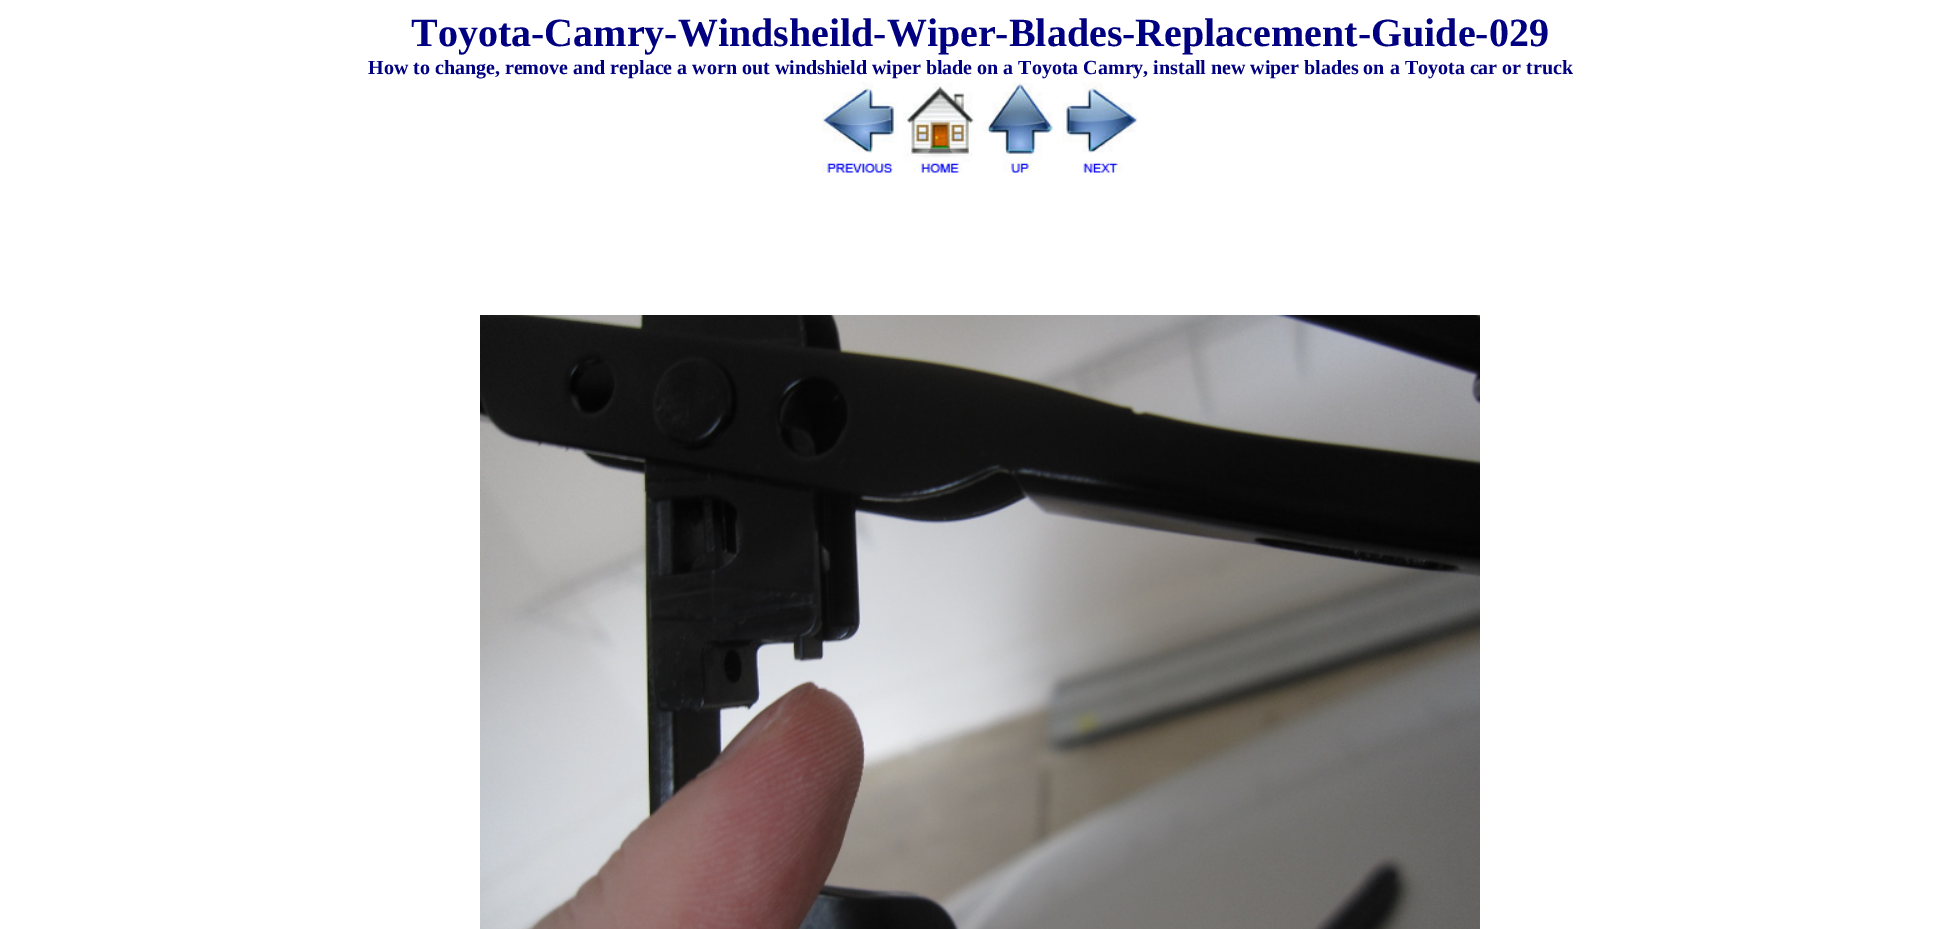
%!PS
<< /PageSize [1960 929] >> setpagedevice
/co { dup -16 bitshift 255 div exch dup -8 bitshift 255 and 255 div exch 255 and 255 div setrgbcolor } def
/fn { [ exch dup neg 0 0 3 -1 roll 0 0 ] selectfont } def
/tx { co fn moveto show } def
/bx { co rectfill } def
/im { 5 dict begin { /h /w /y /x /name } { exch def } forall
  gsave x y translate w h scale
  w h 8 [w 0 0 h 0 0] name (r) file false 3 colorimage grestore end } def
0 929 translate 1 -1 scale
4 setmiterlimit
0 0 1960 929 16#FFFFFF bx
(media/1.raw) 822 82 76 91 im
(media/2.raw) 903 82 72 91 im
(media/3.raw) 982 82 71 91 im
(media/4.raw) 1062 82 76 91 im
(media/5.raw) 480 315 1000 614 im
(Toyota-Camry-Windsheild-Wiper-Blades-Replacement-Guide-029) 411 46 /LiberationSerif-Bold 40 16#000080 tx
(How to change, remove and replace a worn out windshield wiper blade on a Toyota Camry, install new wiper blades on a Toyota car or truck) 368 74 /LiberationSerif-Bold 20 16#000080 tx
showpage
